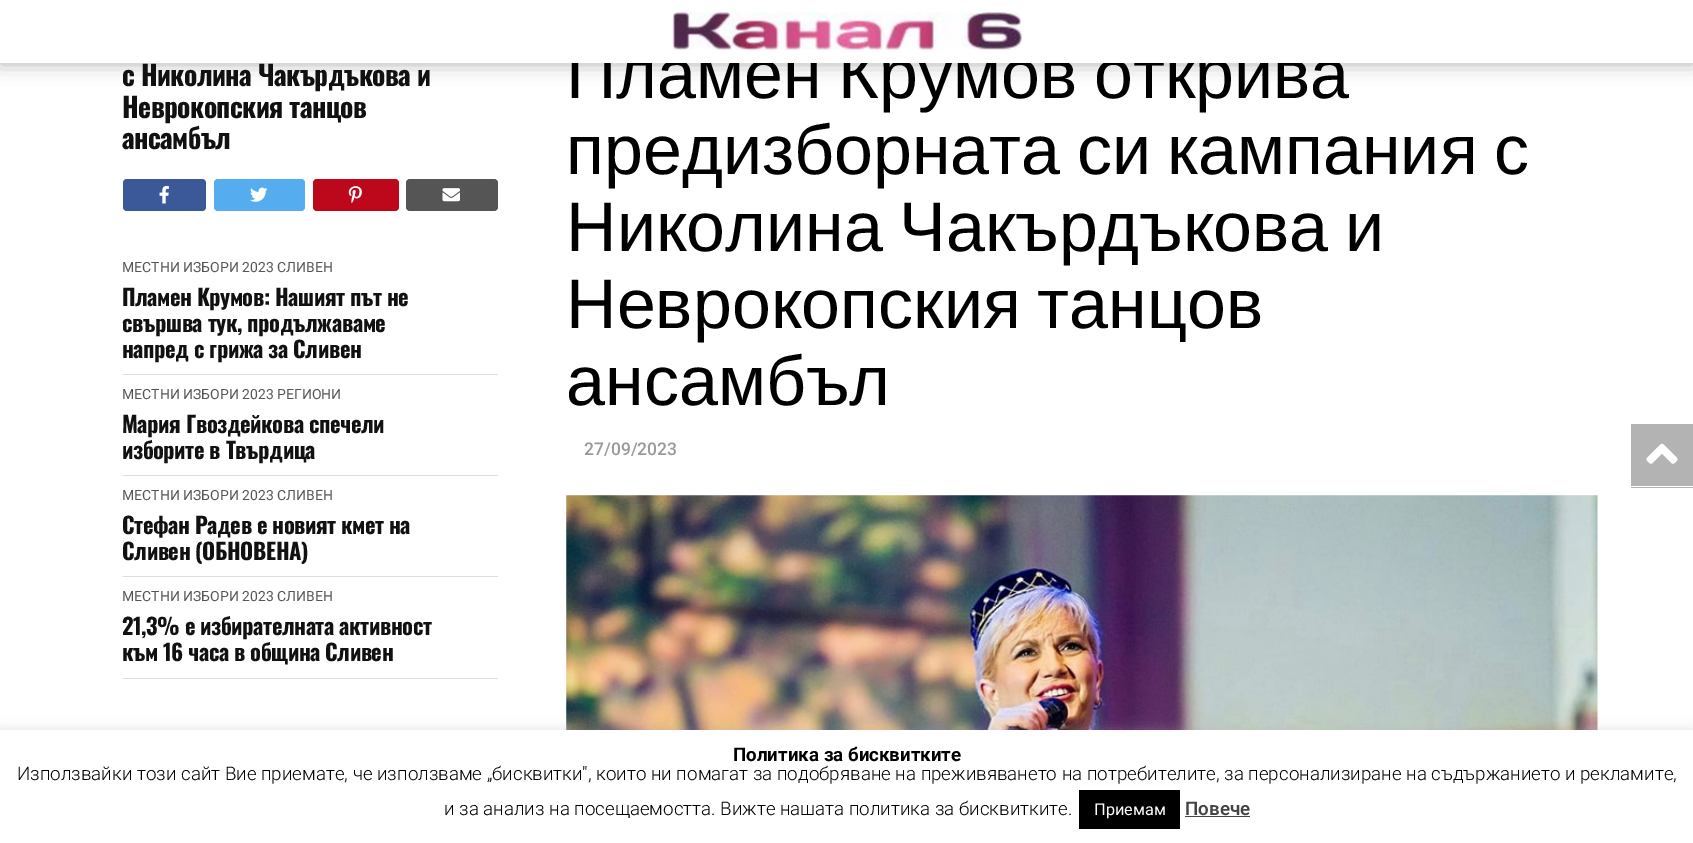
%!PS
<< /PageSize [1693 843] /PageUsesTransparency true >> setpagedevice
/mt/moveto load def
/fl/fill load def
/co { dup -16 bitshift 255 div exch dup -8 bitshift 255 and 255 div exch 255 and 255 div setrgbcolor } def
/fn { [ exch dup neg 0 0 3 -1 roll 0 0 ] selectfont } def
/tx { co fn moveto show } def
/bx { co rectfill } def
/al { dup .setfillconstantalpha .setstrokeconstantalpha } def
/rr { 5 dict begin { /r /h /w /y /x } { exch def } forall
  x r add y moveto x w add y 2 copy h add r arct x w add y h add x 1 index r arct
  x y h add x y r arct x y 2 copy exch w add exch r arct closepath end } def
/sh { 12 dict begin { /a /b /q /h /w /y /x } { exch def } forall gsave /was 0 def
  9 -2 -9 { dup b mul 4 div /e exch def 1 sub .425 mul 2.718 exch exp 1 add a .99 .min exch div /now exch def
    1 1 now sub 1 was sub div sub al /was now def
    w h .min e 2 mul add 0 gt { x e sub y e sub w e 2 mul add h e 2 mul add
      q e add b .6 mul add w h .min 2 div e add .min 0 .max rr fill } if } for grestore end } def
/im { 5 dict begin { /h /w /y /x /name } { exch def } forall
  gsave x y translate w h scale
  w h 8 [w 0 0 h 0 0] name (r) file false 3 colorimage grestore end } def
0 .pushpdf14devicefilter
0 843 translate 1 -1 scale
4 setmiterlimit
0 0 1693 843 16#FFFFFF bx
16#000000 co
0 1 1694 63 0 10 .3 sh
16#3B5998 co
123 179 83 32 4 rr fl
(media/2.raw) 159 185 10 19 im
16#55ACEE co
214 179 91 32 4 rr fl
(media/3.raw) 250 187 18 15 im
16#BD081C co
313 179 86 32 4 rr fl
(media/4.raw) 348 186 14 18 im
16#555555 co
406 179 92 32 4 rr fl
(media/5.raw) 442 188 18 14 im
123 374 375 1 16#DDDDDD bx
123 475 375 1 16#DDDDDD bx
123 576 375 1 16#DDDDDD bx
123 678 375 1 16#DDDDDD bx
(media/6.raw) 566 495 1032 235 im
1631 424 62 64 16#B3B3B3 bx
1630 486 63 1 16#FFFFFF bx
(media/7.raw) 1646 443 32 21 im
16#ACABAB co
0 729 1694 114 0 6 .3 sh
0 730 1693 113 16#FFFFFF bx
1079 790 101 39 16#000000 bx
1185 816 65 1 16#444444 bx
/Oswald-Bold 27.5 fn
16#111111 co
122 86 mt -.55 0 (с Николина Чакърдъкова и) ashow
122 118 mt -.55 0 (Неврокопския танцов) ashow
122 149 mt -.55 0 (ансамбъл) ashow
(МЕСТНИ ИЗБОРИ 2023 СЛИВЕН) 122 272 /Roboto-Regular 14 16#555555 tx
/Oswald-Bold 22.5 fn
16#111111 co
122 306 mt -.45 0 (Пламен Крумов: Нашият път не) ashow
122 332 mt -.45 0 (свършва тук, продължаваме) ashow
122 358 mt -.45 0 (напред с грижа за Сливен) ashow
(МЕСТНИ ИЗБОРИ 2023 РЕГИОНИ) 122 399 /Roboto-Regular 14 16#555555 tx
/Oswald-Bold 22.5 fn
16#111111 co
122 433 mt -.45 0 (Мария Гвоздейкова спечели) ashow
122 459 mt -.45 0 (изборите в Твърдица) ashow
(МЕСТНИ ИЗБОРИ 2023 СЛИВЕН) 122 500 /Roboto-Regular 14 16#555555 tx
/Oswald-Bold 22.5 fn
16#111111 co
122 534 mt -.45 0 (Стефан Радев е новият кмет на) ashow
122 560 mt -.45 0 (Сливен \(ОБНОВЕНА\)) ashow
(МЕСТНИ ИЗБОРИ 2023 СЛИВЕН) 122 601 /Roboto-Regular 14 16#555555 tx
/Oswald-Bold 22.5 fn
16#111111 co
122 635 mt -.45 0 (21,3% e избирателната активност) ashow
122 661 mt -.45 0 (към 16 часа в община Сливен) ashow
/LiberationSans-Regular 70 fn
16#000000 co
566 98 mt -3 0 32 (Пламен Крумов открива) widthshow
0 0 1693 63 16#FFFFFF bx
(media/1.raw) 672 12 350 38 im
16#000000 co
566 174 mt -3 0 32 (предизборната си кампания с) widthshow
566 251 mt -3 0 32 (Николина Чакърдъкова и) widthshow
566 328 mt -3 0 32 (Неврокопския танцов) widthshow
(ансамбъл) 566 405 /LiberationSans-Regular 70 16#000000 tx
(27/09/2023) 584 455 /Roboto-Medium 17.5 16#999999 tx
(Политика за бисквитките) 733 761 /Roboto-Bold 18.75 16#000000 tx
(Използвайки този сайт Вие приемате, че използваме „бисквитки", които ни помагат за подобряване на преживяването на потребителите, за персонализиране на съдържанието и рекламите,) 17 780 /Roboto-Light 18.75 16#000000 tx
(и за анализ на посещаемостта. Вижте нашата политика за бисквитките.) 444 815 /Roboto-Light 18.75 16#000000 tx
(Приемам) 1094 815 /Roboto-Regular 16.25 16#FFFFFF tx
(Повече) 1185 815 /Roboto-SemiBold 18.75 16#444444 tx
.poppdf14devicefilter showpage
